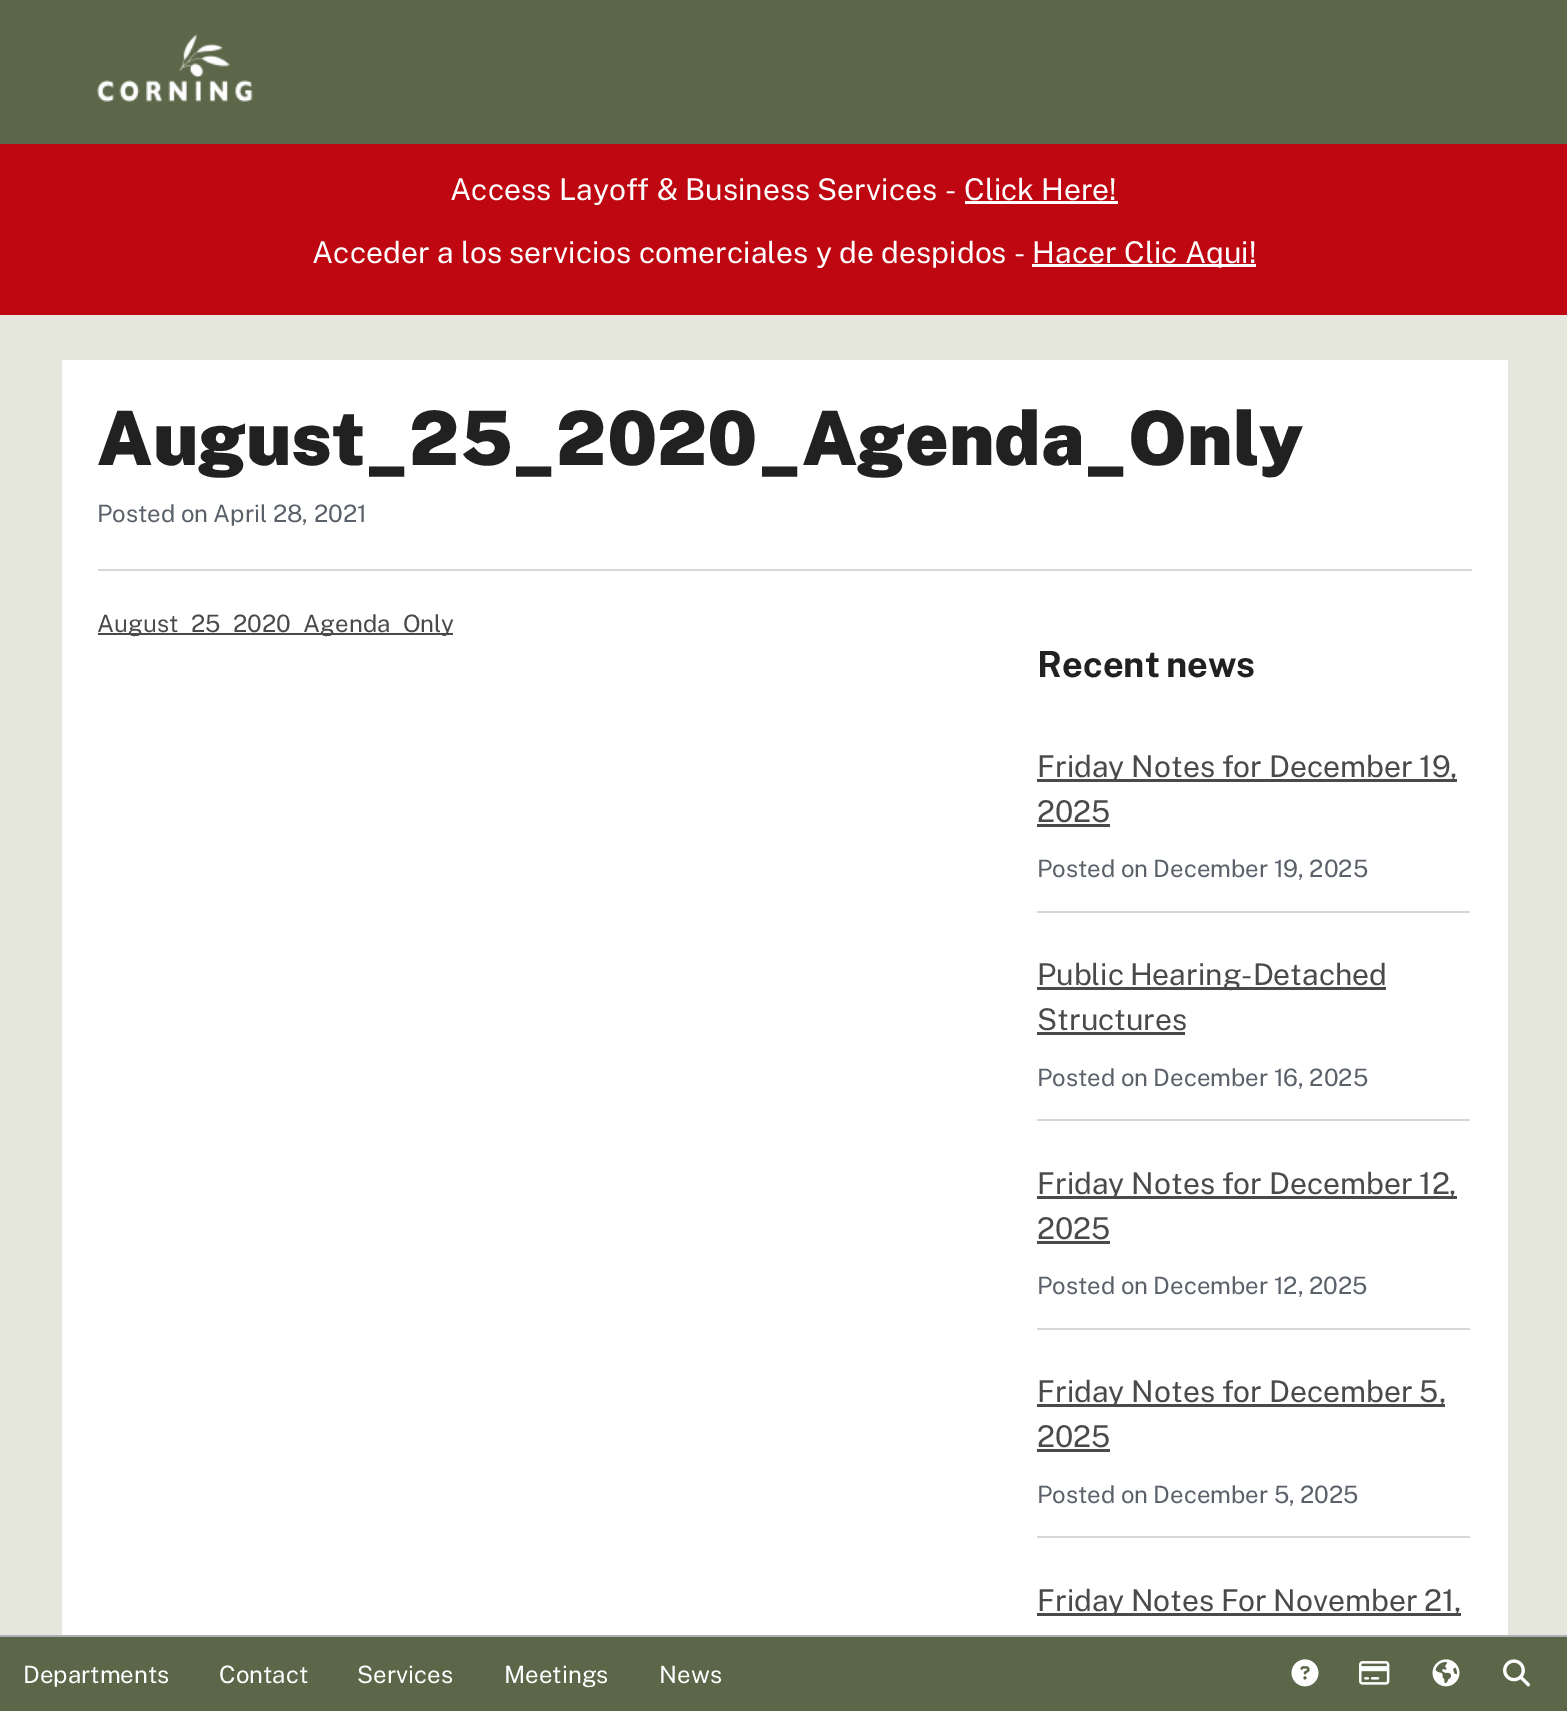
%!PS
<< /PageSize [1567 1711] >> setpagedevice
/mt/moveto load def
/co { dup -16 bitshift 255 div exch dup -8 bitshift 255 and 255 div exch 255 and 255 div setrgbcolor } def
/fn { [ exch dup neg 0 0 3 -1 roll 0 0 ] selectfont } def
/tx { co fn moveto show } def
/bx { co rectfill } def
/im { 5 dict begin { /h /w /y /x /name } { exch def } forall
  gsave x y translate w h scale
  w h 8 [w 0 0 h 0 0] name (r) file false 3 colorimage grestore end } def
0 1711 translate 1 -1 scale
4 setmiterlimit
0 0 1567 1711 16#E5E6DC bx
0 144 1567 171 16#BF0711 bx
965 201 153 3 16#FFFFFF bx
1032 264 224 3 16#FFFFFF bx
62 360 1446 1275 16#FFFFFF bx
98 569 1374 2 16#D6D7D9 bx
98 633 355 2 16#4A4A48 bx
1037 779 420 3 16#4A4A48 bx
1037 824 73 3 16#4A4A48 bx
1037 911 433 2 16#D6D7D9 bx
1037 987 349 3 16#4A4A48 bx
1037 1032 148 3 16#4A4A48 bx
1037 1119 433 2 16#D6D7D9 bx
1037 1196 420 3 16#4A4A48 bx
1037 1241 73 3 16#4A4A48 bx
1037 1328 433 2 16#D6D7D9 bx
1037 1404 408 3 16#4A4A48 bx
1037 1449 73 3 16#4A4A48 bx
1037 1536 433 2 16#D6D7D9 bx
1037 1613 424 3 16#4A4A48 bx
0 0 1567 144 16#5C6648 bx
(media/1.raw) 97 34 156 68 im
0 1637 1567 74 16#5C6648 bx
0 1635 1567 2 16#AEB0B5 bx
(media/2.raw) 1291 1659 28 28 im
(media/3.raw) 1359 1661 31 24 im
(media/4.raw) 1432 1659 28 28 im
(media/5.raw) 1503 1659 27 28 im
(Access Layoff & Business Services -) 450 200 /PublicSans-Regular 30 16#FFFFFF tx
964 200 mt -1 0 32 (Click Here!) widthshow
(Acceder a los servicios comerciales y de despidos -) 312 263 /PublicSans-Regular 30 16#FFFFFF tx
(Hacer Clic Aqui!) 1032 263 /PublicSans-Regular 30 16#FFFFFF tx
(August_25_2020_Agenda_Only) 97 465 /PublicSans-Black 75 16#212121 tx
/PublicSans-Regular 24 fn
16#5B616B co
97 522 mt -.5 0 32 (Posted on April 28, 2021) widthshow
(August_25_2020_Agenda_Only) 97 632 /PublicSans-Regular 24 16#4A4A48 tx
/PublicSans-Bold 36 fn
16#212121 co
1037 677 mt -2 0 32 (Recent news) widthshow
/PublicSans-Regular 30 fn
16#4A4A48 co
1037 777 mt -.5 0 32 (Friday Notes for December 19,) widthshow
(2025) 1037 822 /PublicSans-Regular 30 16#4A4A48 tx
/PublicSans-Regular 24 fn
16#5B616B co
1037 877 mt -.5 0 32 (Posted on December 19, 2025) widthshow
/PublicSans-Regular 30 fn
16#4A4A48 co
1037 985 mt -2 0 32 (Public Hearing-Detached) widthshow
(Structures) 1037 1030 /PublicSans-Regular 30 16#4A4A48 tx
/PublicSans-Regular 24 fn
16#5B616B co
1037 1086 mt -.5 0 32 (Posted on December 16, 2025) widthshow
/PublicSans-Regular 30 fn
16#4A4A48 co
1037 1194 mt -.5 0 32 (Friday Notes for December 12,) widthshow
(2025) 1037 1239 /PublicSans-Regular 30 16#4A4A48 tx
/PublicSans-Regular 24 fn
16#5B616B co
1037 1294 mt -.5 0 32 (Posted on December 12, 2025) widthshow
/PublicSans-Regular 30 fn
16#4A4A48 co
1037 1402 mt -.5 0 32 (Friday Notes for December 5,) widthshow
(2025) 1037 1447 /PublicSans-Regular 30 16#4A4A48 tx
/PublicSans-Regular 24 fn
16#5B616B co
1037 1503 mt -.5 0 32 (Posted on December 5, 2025) widthshow
/PublicSans-Regular 30 fn
16#4A4A48 co
1037 1611 mt -1 0 32 (Friday Notes For November 21,) widthshow
(Departments) 23 1683 /PublicSans-Regular 24 16#FFFFFF tx
(Contact) 219 1683 /PublicSans-Regular 24 16#FFFFFF tx
(Services) 357 1683 /PublicSans-Regular 24 16#FFFFFF tx
(Meetings) 504 1683 /PublicSans-Regular 24 16#FFFFFF tx
(News) 659 1683 /PublicSans-Regular 24 16#FFFFFF tx
showpage
